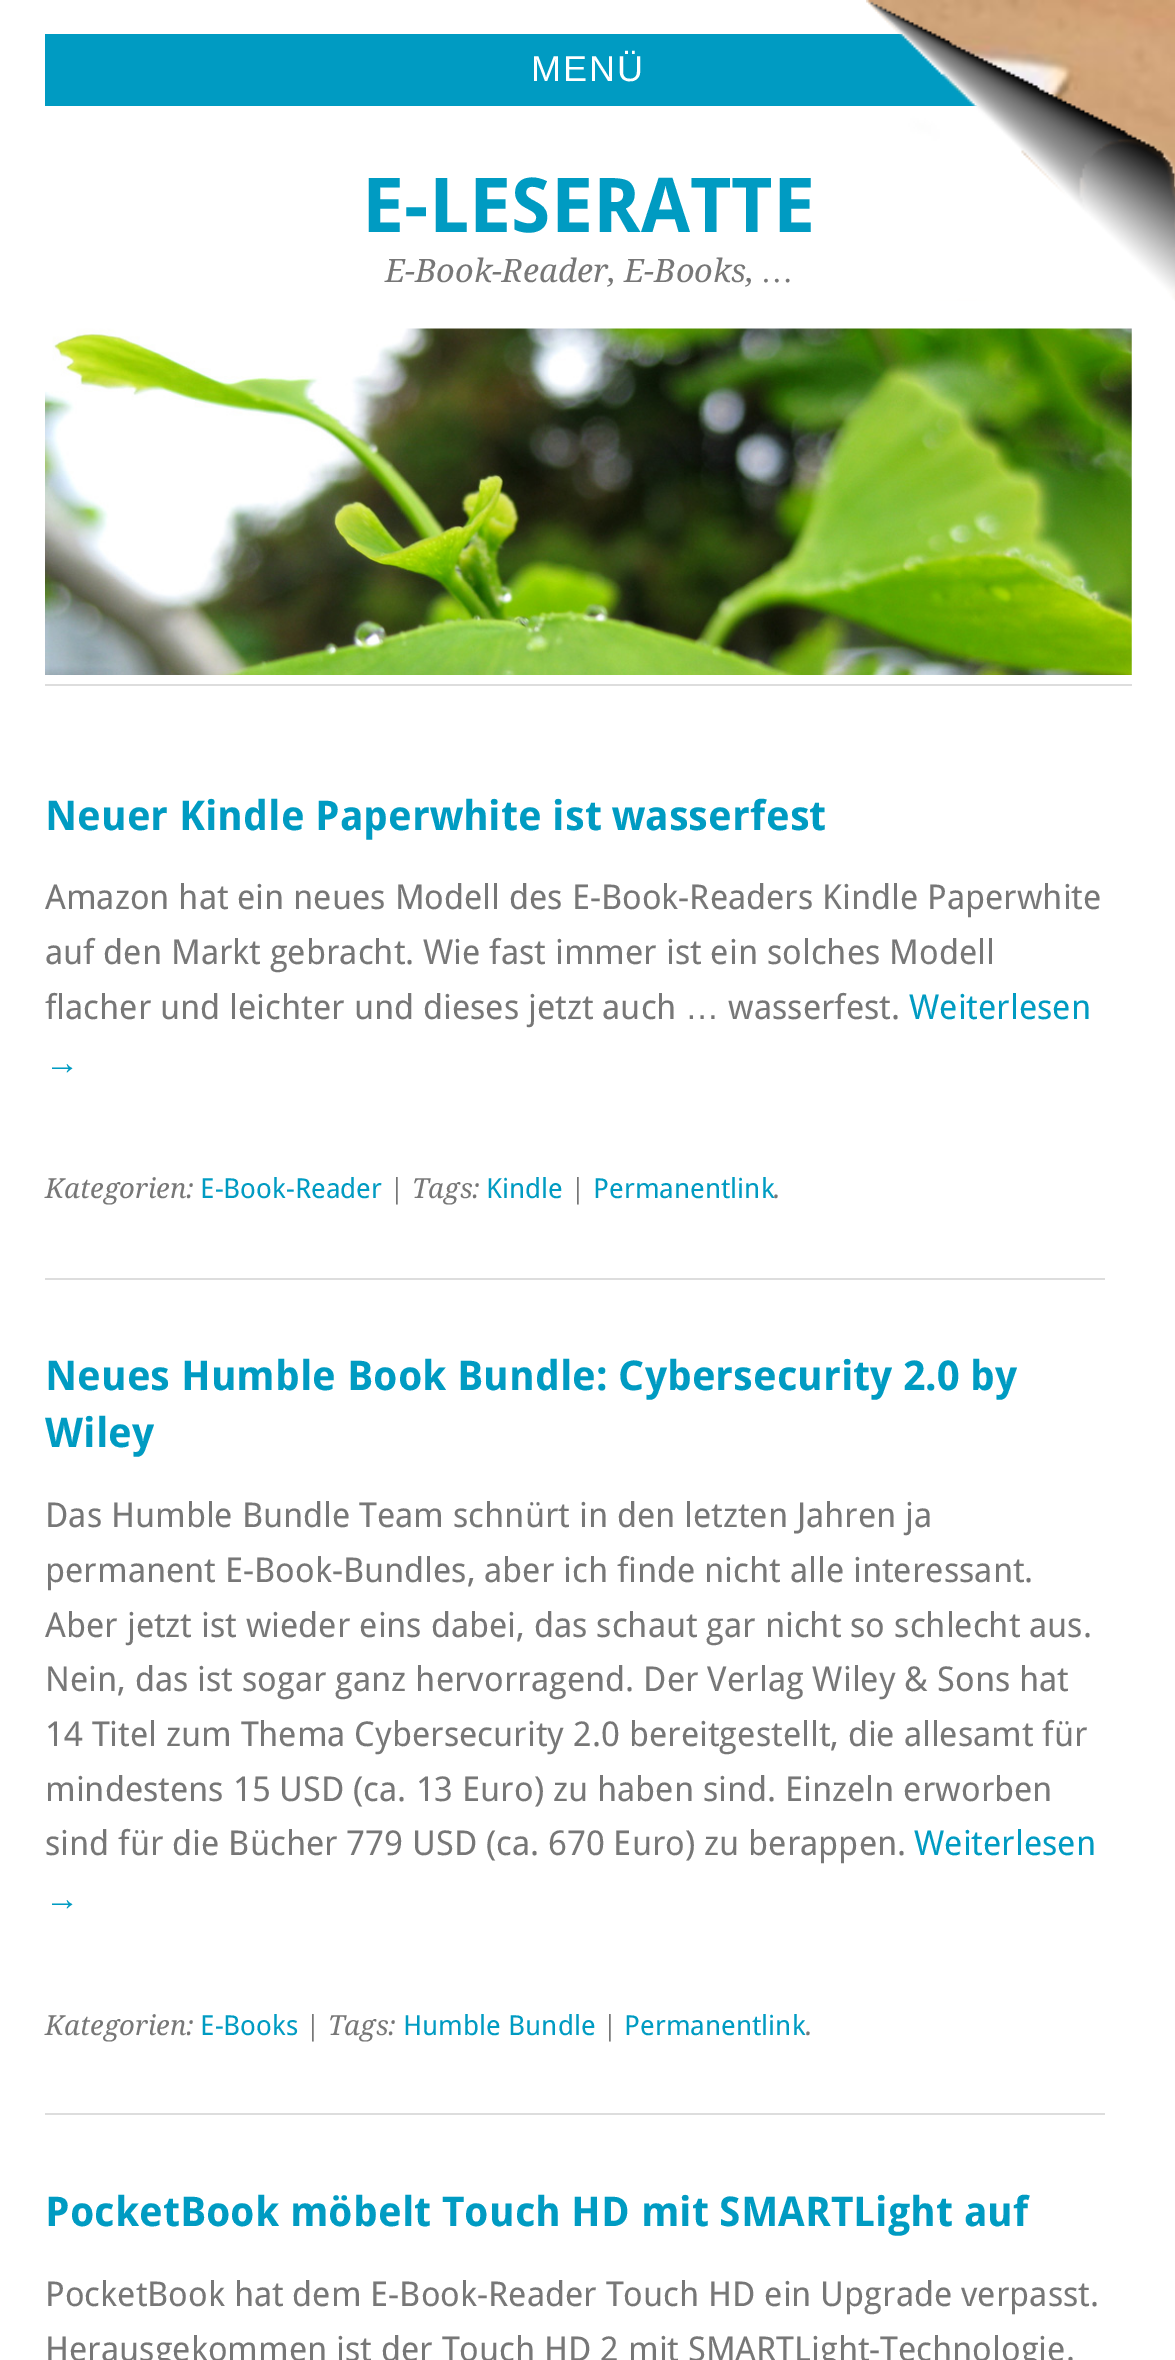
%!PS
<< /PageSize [1175 2360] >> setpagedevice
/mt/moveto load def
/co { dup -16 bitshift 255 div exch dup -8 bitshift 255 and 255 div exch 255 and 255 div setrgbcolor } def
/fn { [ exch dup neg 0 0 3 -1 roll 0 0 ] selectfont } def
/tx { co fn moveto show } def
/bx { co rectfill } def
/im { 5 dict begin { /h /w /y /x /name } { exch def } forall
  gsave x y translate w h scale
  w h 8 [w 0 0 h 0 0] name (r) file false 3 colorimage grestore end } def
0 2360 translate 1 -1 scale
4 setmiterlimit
0 0 1175 2360 16#FFFFFF bx
45 34 933 72 16#009BC2 bx
(media/1.raw) 45 328 1087 347 im
45 684 1087 2 16#DDDDDD bx
(media/2.raw) 866 0 309 301 im
45 1278 1060 2 16#DDDDDD bx
45 2113 1060 2 16#DDDDDD bx
/LiberationSans-Regular 36 fn
16#FFFFFF co
531 81 mt 2 0 (MENÜ) ashow
(E-LESERATTE) 362 232 /DroidSans-Bold 75.5 16#009BC2 tx
(E-Book-Reader, E-Books,) 385 282 /DroidSerif-Italic 32.4 16#777777 tx
(…) 763 282 /LiberationSerif-Italic 32.4 16#777777 tx
(Neuer Kindle Paperwhite ist wasserfest) 45 830 /DroidSans-Bold 41 16#009BC2 tx
(Amazon hat ein neues Modell des E-Book-Readers Kindle Paperwhite) 45 909 /DroidSans-Regular 34.2 16#777777 tx
(auf den Markt gebracht. Wie fast immer ist ein solches Modell) 45 964 /DroidSans-Regular 34.2 16#777777 tx
(flacher und leichter und dieses jetzt auch) 45 1019 /DroidSans-Regular 34.2 16#777777 tx
(…) 685 1019 /LiberationSans-Regular 34.2 16#777777 tx
(wasserfest.) 728 1019 /DroidSans-Regular 34.2 16#777777 tx
(Weiterlesen) 909 1019 /DroidSans-Regular 34.2 16#009BC2 tx
(→) 45 1074 /LiberationSans-Regular 34.2 16#009BC2 tx
(Kategorien:) 45 1198 /DroidSerif-Italic 27.5 16#777777 tx
(E-Book-Reader) 200 1198 /DroidSans-Regular 27.5 16#009BC2 tx
(| Tags:) 389 1198 /DroidSerif-Italic 27.5 16#777777 tx
(Kindle) 486 1198 /DroidSans-Regular 27.5 16#009BC2 tx
(|) 570 1198 /DroidSerif-Italic 27.5 16#777777 tx
(Permanentlink) 593 1198 /DroidSans-Regular 27.5 16#009BC2 tx
(.) 773 1198 /DroidSerif-Italic 27.5 16#777777 tx
(Neues Humble Book Bundle: Cybersecurity 2.0 by) 45 1390 /DroidSans-Bold 41 16#009BC2 tx
(Wiley) 45 1447 /DroidSans-Bold 41 16#009BC2 tx
(Das Humble Bundle Team schnürt in den letzten Jahren ja) 45 1527 /DroidSans-Regular 34.2 16#777777 tx
(permanent E-Book-Bundles, aber ich finde nicht alle interessant.) 45 1582 /DroidSans-Regular 34.2 16#777777 tx
(Aber jetzt ist wieder eins dabei, das schaut gar nicht so schlecht aus.) 45 1637 /DroidSans-Regular 34.2 16#777777 tx
(Nein, das ist sogar ganz hervorragend. Der Verlag Wiley & Sons hat) 45 1691 /DroidSans-Regular 34.2 16#777777 tx
(14 Titel zum Thema Cybersecurity 2.0 bereitgestellt, die allesamt für) 45 1746 /DroidSans-Regular 34.2 16#777777 tx
(mindestens 15 USD \(ca. 13 Euro\) zu haben sind. Einzeln erworben) 45 1801 /DroidSans-Regular 34.2 16#777777 tx
(sind für die Bücher 779 USD \(ca. 670 Euro\) zu berappen.) 45 1855 /DroidSans-Regular 34.2 16#777777 tx
(Weiterlesen) 914 1855 /DroidSans-Regular 34.2 16#009BC2 tx
(→) 45 1910 /LiberationSans-Regular 34.2 16#009BC2 tx
(Kategorien:) 45 2035 /DroidSerif-Italic 27.5 16#777777 tx
(E-Books) 200 2035 /DroidSans-Regular 27.5 16#009BC2 tx
(| Tags:) 305 2035 /DroidSerif-Italic 27.5 16#777777 tx
(Humble Bundle) 403 2035 /DroidSans-Regular 27.5 16#009BC2 tx
(|) 602 2035 /DroidSerif-Italic 27.5 16#777777 tx
(Permanentlink) 624 2035 /DroidSans-Regular 27.5 16#009BC2 tx
(.) 805 2035 /DroidSerif-Italic 27.5 16#777777 tx
(PocketBook möbelt Touch HD mit SMARTLight auf) 45 2226 /DroidSans-Bold 41 16#009BC2 tx
(PocketBook hat dem E-Book-Reader Touch HD ein Upgrade verpasst.) 45 2306 /DroidSans-Regular 34.2 16#777777 tx
(Herausgekommen ist der Touch HD 2 mit SMARTLight-Technologie.) 45 2361 /DroidSans-Regular 34.2 16#777777 tx
showpage
